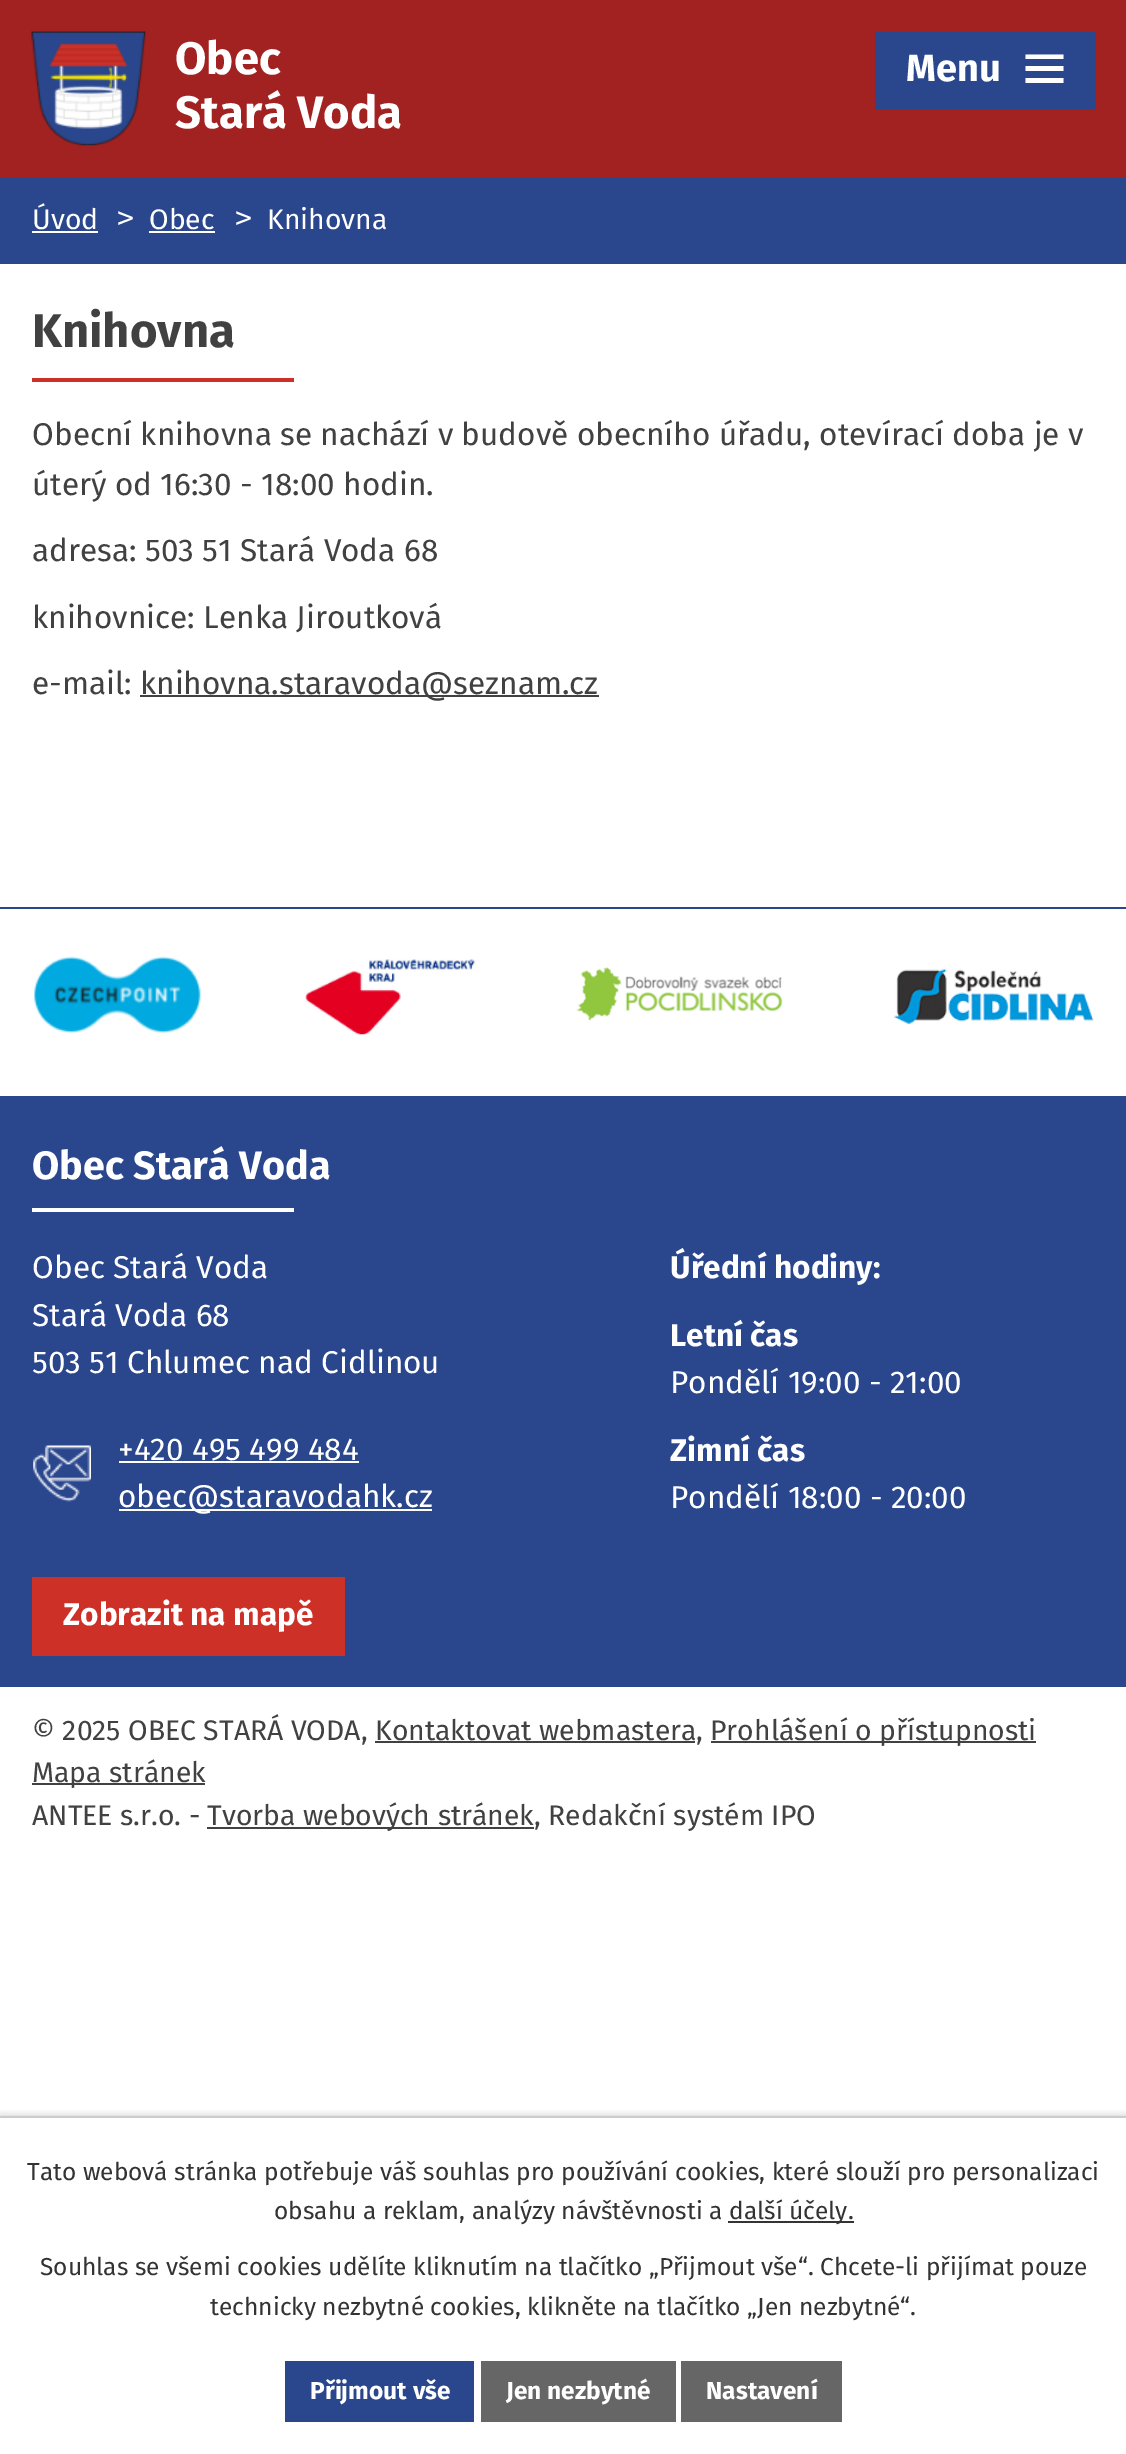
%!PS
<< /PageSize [1126 2454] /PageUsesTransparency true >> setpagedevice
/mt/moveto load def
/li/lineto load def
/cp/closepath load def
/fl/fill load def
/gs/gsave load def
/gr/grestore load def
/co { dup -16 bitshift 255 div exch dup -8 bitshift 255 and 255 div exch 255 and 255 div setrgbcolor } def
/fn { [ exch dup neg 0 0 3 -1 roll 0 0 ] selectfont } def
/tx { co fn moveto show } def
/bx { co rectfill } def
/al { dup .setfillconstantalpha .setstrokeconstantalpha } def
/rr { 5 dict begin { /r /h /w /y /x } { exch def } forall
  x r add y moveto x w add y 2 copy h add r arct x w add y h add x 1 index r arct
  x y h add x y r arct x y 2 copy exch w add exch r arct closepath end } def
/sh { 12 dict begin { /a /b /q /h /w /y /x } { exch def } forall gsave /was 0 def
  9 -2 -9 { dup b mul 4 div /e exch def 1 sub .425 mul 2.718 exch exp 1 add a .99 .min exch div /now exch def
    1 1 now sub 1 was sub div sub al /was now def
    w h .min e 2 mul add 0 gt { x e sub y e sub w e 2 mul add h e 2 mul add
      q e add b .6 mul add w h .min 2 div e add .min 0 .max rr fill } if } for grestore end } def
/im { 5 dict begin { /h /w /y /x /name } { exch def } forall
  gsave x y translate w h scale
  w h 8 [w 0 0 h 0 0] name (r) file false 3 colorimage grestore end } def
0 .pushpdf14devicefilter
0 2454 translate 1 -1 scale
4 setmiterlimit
0 0 1126 2454 16#FFFFFF bx
0 0 1126 177 16#A22222 bx
(media/1.raw) 31 31 115 115 im
875 32 221 78 16#2A478D bx
16#FFFFFF co
1025.5 83 mt 1025.5 78 li 1063.5 78 li 1063.5 83 li cp 1025.5 54.5 mt 1063.5 54.5 li 1063.5 59 li 1025.5 59 li cp 1025.5 71 mt 1025.5 66 li 1063.5 66 li 1063.5 71 li cp fl
0 177 1126 87 16#2A478D bx
32 231 66 2 16#FFFFFF bx
149 231 66 2 16#FFFFFF bx
32 378 262 4 16#CD3027 bx
140 695 459 2 16#414141 bx
0 907 1126 2 16#2A468D bx
(media/2.raw) 34 956 168 78 im
(media/3.raw) 305 959 171 76 im
(media/4.raw) 576 967 207 54 im
(media/5.raw) 893 969 201 55 im
0 1096 1126 591 16#2A478D bx
32 1208 262 4 16#FFFFFF bx
(media/6.raw) 33 1445 58 57 im
119 1461 240 2 16#FFFFFF bx
119 1509 313 2 16#FFFFFF bx
32 1577 313 79 16#CD3027 bx
711 1741 325 2 16#414141 bx
375 1741 320 2 16#414141 bx
32 1783 173 2 16#414141 bx
207 1827 327 2 16#414141 bx
gs
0 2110 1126 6 rectclip
16#000000 co
0 2116 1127 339 0 4.5 .2 sh
gr
0 2116 1126 2 16#CCCCCC bx
728 2221 126 2 16#333333 bx
285 2361 189 61 16#2A478D bx
481 2361 195 61 16#666666 bx
681 2361 161 61 16#666666 bx
(Obec) 175 74 /FiraSans-Bold 45.5 16#FFFFFF tx
(Stará Voda) 175 128 /FiraSans-Bold 45.5 16#FFFFFF tx
(Menu) 906 81 /FiraSans-Bold 38 16#FFFFFF tx
(Úvod) 32 229 /FiraSans-Regular 28.35 16#FFFFFF tx
(>) 117 227 /DejaVuSansMono-Regular 28.35 16#FFFFFF tx
(Obec) 149 229 /FiraSans-Regular 28.35 16#FFFFFF tx
(>) 235 227 /DejaVuSansMono-Regular 28.35 16#FFFFFF tx
(Knihovna) 267 229 /FiraSans-Regular 28.35 16#FFFFFF tx
(Knihovna) 32 347 /FiraSans-Bold 47.25 16#414141 tx
(Obecní knihovna se nachází v budově obecního úřadu, otevírací doba je v) 32 445 /FiraSans-Regular 31.5 16#414141 tx
(úterý od 16:30 - 18:00 hodin.) 32 495 /FiraSans-Regular 31.5 16#414141 tx
(adresa: 503 51 Stará Voda 68) 32 561 /FiraSans-Regular 31.5 16#414141 tx
(knihovnice: Lenka Jiroutková) 32 628 /FiraSans-Regular 31.5 16#414141 tx
(e-mail:) 32 694 /FiraSans-Regular 31.5 16#414141 tx
(knihovna.staravoda@seznam.cz) 140 694 /FiraSans-Regular 31.5 16#414141 tx
(Obec Stará Voda) 32 1179 /FiraSans-Bold 39.5 16#FFFFFF tx
(Obec Stará Voda) 32 1278 /FiraSans-Regular 31.5 16#FFFFFF tx
(Stará Voda 68) 32 1326 /FiraSans-Regular 31.5 16#FFFFFF tx
(503 51 Chlumec nad Cidlinou) 32 1373 /FiraSans-Regular 31.5 16#FFFFFF tx
(+420 495 499 484) 118 1460 /FiraSans-Regular 31.5 16#FFFFFF tx
(obec@staravodahk.cz) 118 1507 /FiraSans-Regular 31.5 16#FFFFFF tx
(Úřední hodiny:) 670 1278 /FiraSans-Bold 31.5 16#FFFFFF tx
(Letní čas) 670 1346 /FiraSans-Bold 31.5 16#FFFFFF tx
(Pondělí 19:00 - 21:00) 670 1393 /FiraSans-Regular 31.5 16#FFFFFF tx
(Zimní čas) 670 1461 /FiraSans-Bold 31.5 16#FFFFFF tx
(Pondělí 18:00 - 20:00) 670 1508 /FiraSans-Regular 31.5 16#FFFFFF tx
(Zobrazit na mapě) 63 1625 /FiraSans-Bold 31.5 16#FFFFFF tx
(© 2025 OBEC STARÁ VODA, Kontaktovat webmastera,) 32 1740 /FiraSans-Regular 28.35 16#414141 tx
(Prohlášení o přístupnosti) 710 1740 /FiraSans-Regular 28.35 16#414141 tx
(Mapa stránek) 32 1782 /FiraSans-Regular 28.35 16#414141 tx
(ANTEE s.r.o. -) 32 1825 /FiraSans-Regular 28.35 16#414141 tx
(Tvorba webových stránek, Redakční systém IPO) 207 1825 /FiraSans-Regular 28.35 16#414141 tx
(Tato webová stránka potřebuje váš souhlas pro používání cookies, které slouží pro personalizaci) 27 2180 /FiraSans-Regular 24.5 16#333333 tx
(obsahu a reklam, analýzy návštěvnosti a) 274 2219 /FiraSans-Regular 24.5 16#333333 tx
(další účely.) 729 2219 /FiraSans-Regular 24.5 16#333333 tx
(Souhlas se všemi cookies udělíte kliknutím na tlačítko „Přijmout vše“. Chcete-li přijímat pouze) 40 2275 /FiraSans-Regular 24.5 16#333333 tx
(technicky nezbytné cookies, klikněte na tlačítko „Jen nezbytné“.) 210 2315 /FiraSans-Regular 24.5 16#333333 tx
(Přijmout vše) 310 2399 /FiraSans-Bold 24.5 16#FFFFFF tx
(Jen nezbytné) 506 2399 /FiraSans-Bold 24.5 16#FFFFFF tx
(Nastavení) 706 2399 /FiraSans-Bold 24.5 16#FFFFFF tx
.poppdf14devicefilter showpage
